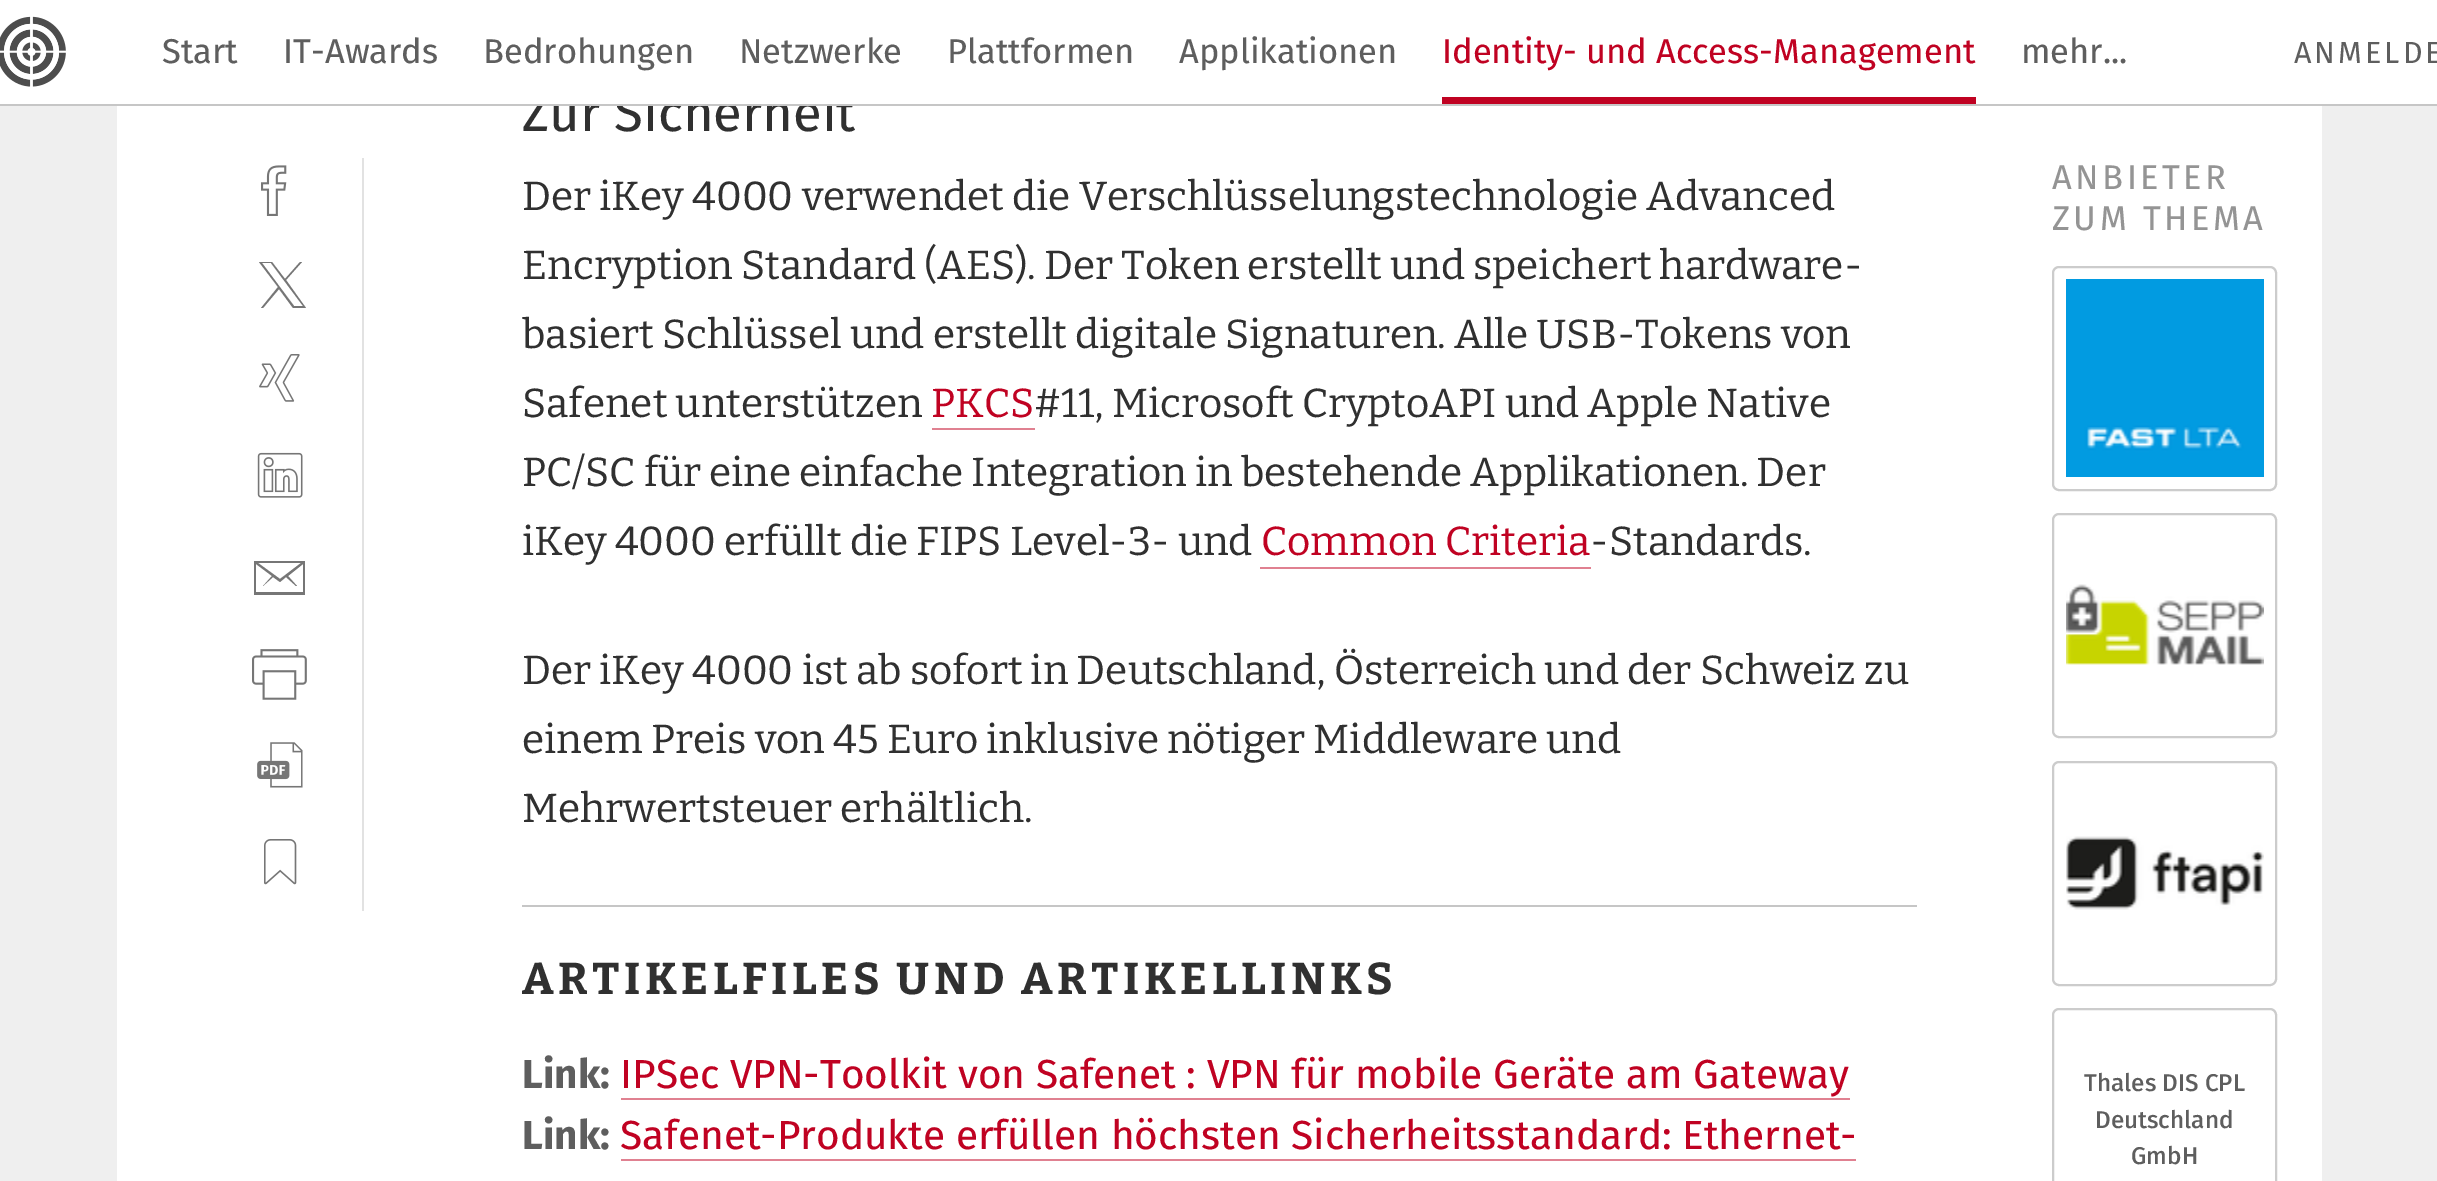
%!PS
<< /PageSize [2437 1181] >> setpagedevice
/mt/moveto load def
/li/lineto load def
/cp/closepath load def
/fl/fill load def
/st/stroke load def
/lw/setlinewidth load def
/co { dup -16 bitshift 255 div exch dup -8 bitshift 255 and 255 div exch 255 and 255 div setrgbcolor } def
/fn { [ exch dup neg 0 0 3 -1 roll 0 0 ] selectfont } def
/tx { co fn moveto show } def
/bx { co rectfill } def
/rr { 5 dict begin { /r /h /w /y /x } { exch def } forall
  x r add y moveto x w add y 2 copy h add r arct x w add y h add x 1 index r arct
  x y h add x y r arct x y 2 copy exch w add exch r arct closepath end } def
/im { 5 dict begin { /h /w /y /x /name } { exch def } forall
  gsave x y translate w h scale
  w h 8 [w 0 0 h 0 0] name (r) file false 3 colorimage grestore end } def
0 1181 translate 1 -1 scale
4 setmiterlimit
0 0 2437 1181 16#EFEFEF bx
117 106 2205 1075 16#FFFFFF bx
362 158 2 753 16#E2E2E2 bx
(media/2.raw) 261 165 26 51 im
16#767676 co
261 308 mt 263 308 li 279 289 li 293 308 li 306 308 li 286 280 li 302 262 li 300 262 li 285 279 li 272 262 li 259 262 li 278 287 li cp 262 263 mt 271 263 li 303 306 li 294 306 li cp fl
(media/3.raw) 259 354 41 48 im
(media/4.raw) 257 452 46 46 im
254 561 mt 305 561 li 305 595 li 254 595 li cp 280 579 mt 301 563 li 258 563 li cp 256 592 mt 303 592 li 303 564 li 288 576 li 297 586 li 296 586 li 286 577 li 280 582 li 273 577 li 263 586 li 272 576 li 256 564 li cp fl
(media/5.raw) 252 649 55 51 im
(media/6.raw) 257 742 46 46 im
(media/7.raw) 264 839 33 46 im
932 428 103 2 16#E08191 bx
1260 567 331 2 16#E08191 bx
16#CCCCCC co
2 lw
2053 267 223 223 6 rr st
(media/8.raw) 2066 279 198 198 im
2053 514 223 223 6 rr st
(media/9.raw) 2066 584 198 81 im
2053 762 223 223 6 rr st
(media/10.raw) 2066 836 198 74 im
2053 1009 223 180 6 rr st
522 905 1395 2 16#C6C6C6 bx
621 1098 1229 2 16#E08191 bx
621 1159 1235 2 16#E08191 bx
(Zur Sicherheit) 522 131 /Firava-Regular 52.5 16#303030 tx
0 0 2437 104 16#FFFFFF bx
(media/1.raw) 0 16 66 71 im
/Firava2-Regular 30.5 fn
16#5E5E5E co
2294 63 mt 3 0 (ANMELDE) ashow
(mehr...) 2021 63 /Firava-Regular 34.4 16#5E5E5E tx
(Identity- und Access-Management) 1442 63 /Firava-Regular 34.4 16#C00222 tx
1442 97 534 7 16#C00222 bx
(Applikationen) 1179 63 /Firava-Regular 34.4 16#5E5E5E tx
(Plattformen) 947 63 /Firava-Regular 34.4 16#5E5E5E tx
(Netzwerke) 739 63 /Firava-Regular 34.4 16#5E5E5E tx
(Bedrohungen) 483 63 /Firava-Regular 34.4 16#5E5E5E tx
(IT-Awards) 283 63 /Firava-Regular 34.4 16#5E5E5E tx
(Start) 162 63 /Firava-Regular 34.4 16#5E5E5E tx
0 104 2437 2 16#C6C6C6 bx
(Der iKey 4000 verwendet die Verschlüsselungstechnologie Advanced) 522 210 /Bitter-Regular 40.5 16#303030 tx
(Encryption Standard \(AES\). Der Token erstellt und speichert hardware-) 522 279 /Bitter-Regular 40.5 16#303030 tx
(basiert Schlüssel und erstellt digitale Signaturen. Alle USB-Tokens von) 522 348 /Bitter-Regular 40.5 16#303030 tx
(Safenet unterstützen) 522 417 /Bitter-Regular 40.5 16#303030 tx
(PKCS) 931 417 /Bitter-Regular 40.5 16#C00222 tx
(#11, Microsoft CryptoAPI und Apple Native) 1034 417 /Bitter-Regular 40.5 16#303030 tx
(PC/SC für eine einfache Integration in bestehende Applikationen. Der) 522 486 /Bitter-Regular 40.5 16#303030 tx
(iKey 4000 erfüllt die FIPS Level-3- und) 522 555 /Bitter-Regular 40.5 16#303030 tx
(Common Criteria) 1261 555 /Bitter-Regular 40.5 16#C00222 tx
(-Standards.) 1590 555 /Bitter-Regular 40.5 16#303030 tx
/Firava-Regular 34.4 fn
16#949494 co
2052 189 mt 3.5 0 (ANBIETER) ashow
2052 230 mt 3.5 0 (ZUM THEMA) ashow
(Thales DIS CPL) 2084 1091 /Firava-Medium 24.25 16#5E5E5E tx
(Deutschland) 2095 1128 /Firava-Medium 24.25 16#5E5E5E tx
(GmbH) 2131 1164 /Firava-Medium 24.25 16#5E5E5E tx
(Der iKey 4000 ist ab sofort in Deutschland, Österreich und der Schweiz zu) 522 684 /Bitter-Regular 40.5 16#303030 tx
(einem Preis von 45 Euro inklusive nötiger Middleware und) 522 753 /Bitter-Regular 40.5 16#303030 tx
(Mehrwertsteuer erhältlich.) 522 822 /Bitter-Regular 40.5 16#303030 tx
/Bitter-Bold 44.5 fn
522 994 mt 4.45 0 (ARTIKELFILES UND ARTIKELLINKS) ashow
(Link:) 522 1088 /Firava-Bold 40.5 16#5E5E5E tx
(IPSec VPN-Toolkit von Safenet : VPN für mobile Geräte am Gateway) 620 1088 /Firava-Regular 40.5 16#C00222 tx
(Link:) 522 1149 /Firava-Bold 40.5 16#5E5E5E tx
(Safenet-Produkte erfüllen höchsten Sicherheitsstandard: Ethernet-) 620 1149 /Firava-Regular 40.5 16#C00222 tx
showpage
